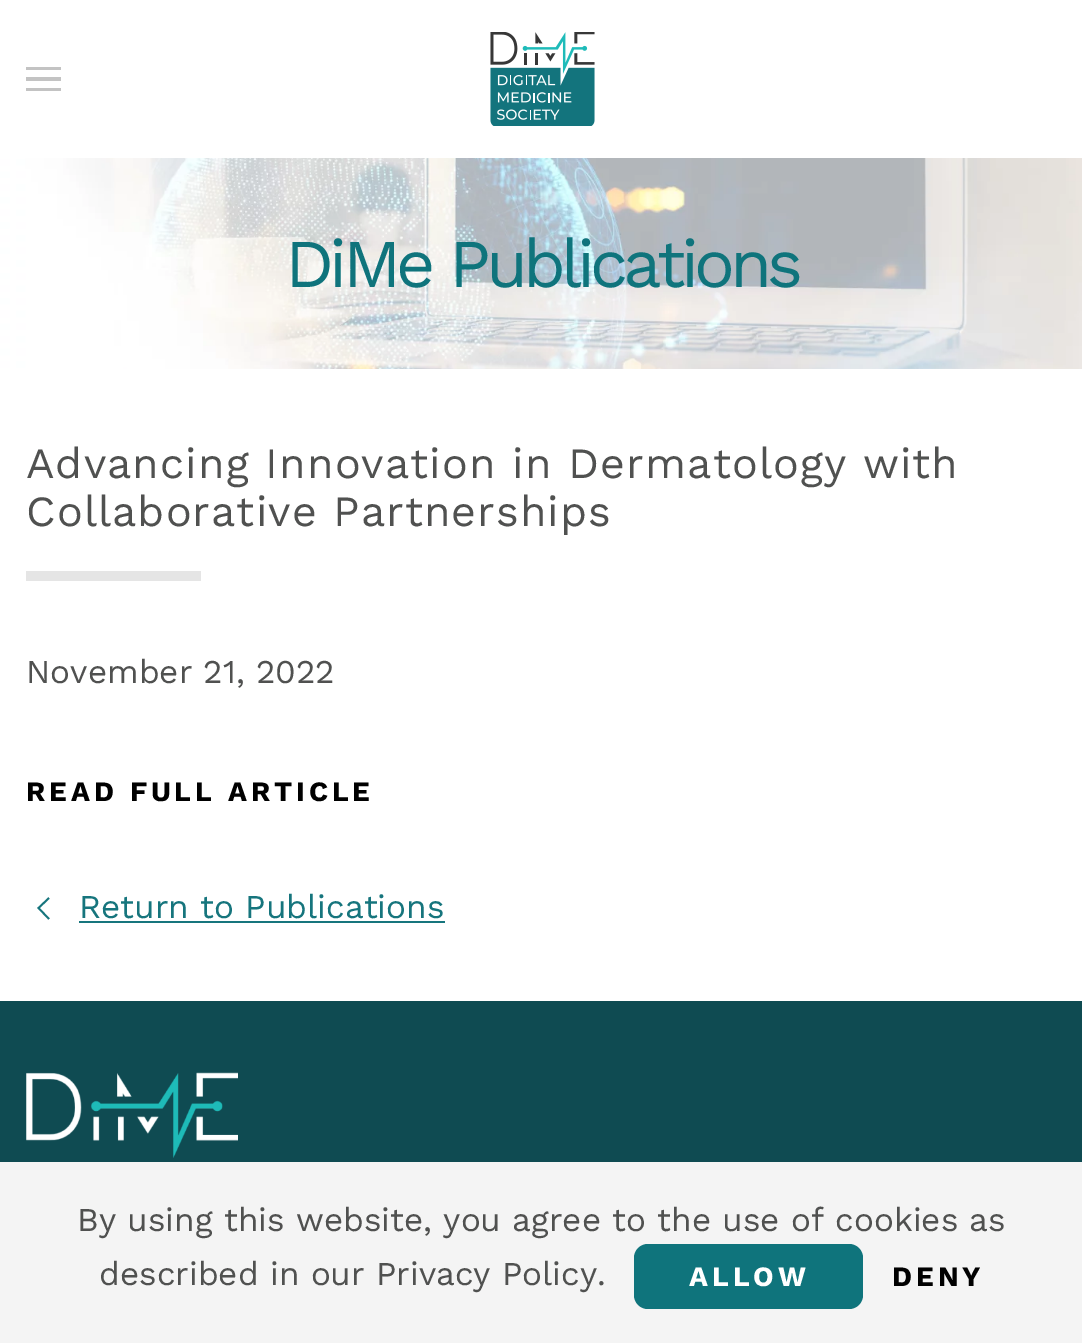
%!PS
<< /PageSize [1082 1343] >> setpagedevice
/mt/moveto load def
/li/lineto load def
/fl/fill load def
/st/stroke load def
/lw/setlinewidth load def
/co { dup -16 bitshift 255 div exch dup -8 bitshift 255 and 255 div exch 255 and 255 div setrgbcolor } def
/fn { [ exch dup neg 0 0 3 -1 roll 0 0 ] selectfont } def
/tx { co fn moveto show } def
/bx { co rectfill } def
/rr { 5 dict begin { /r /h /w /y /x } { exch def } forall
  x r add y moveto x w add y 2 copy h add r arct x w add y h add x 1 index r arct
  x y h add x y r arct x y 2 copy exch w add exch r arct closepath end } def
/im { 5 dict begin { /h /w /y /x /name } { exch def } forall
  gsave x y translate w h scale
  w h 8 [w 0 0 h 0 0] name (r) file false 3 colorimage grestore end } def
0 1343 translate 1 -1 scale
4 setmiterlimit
0 0 1082 1343 16#FFFFFF bx
26 67 35 3 16#C3C3C3 bx
26 77 35 4 16#C3C3C3 bx
26 88 35 3 16#C3C3C3 bx
(media/1.raw) 490 32 105 94 im
(media/2.raw) 0 158 1082 211 im
26 571 175 10 16#E5E5E5 bx
16#16757D co
1.8 lw
49 919 mt 38.5 908 li 49 898 li st
79 921 366 2 16#16757D bx
0 1001 1082 161 16#0F4B52 bx
(media/3.raw) 26 1072 212 86 im
0 1162 1082 181 16#F4F4F4 bx
16#0F747C co
634 1244 229 65 14 rr fl
/WorkSans-Regular 68.25 fn
285 287 mt -4.9 0 (DiMe Publications) ashow
/WorkSans-Regular 43.1 fn
16#505150 co
26 478 mt 1.05 0 (Advancing Innovation in Dermatology with) ashow
26 526 mt 1.05 0 (Collaborative Partnerships) ashow
(November 21, 2022) 26 683 /WorkSans-Regular 33.25 16#505150 tx
/WorkSans-Bold 28 fn
16#000000 co
26 801 mt 3.9 0 (READ FULL ARTICLE) ashow
(Return to Publications) 79 918 /WorkSans-Regular 33.25 16#16757D tx
(By using this website, you agree to the use of cookies as) 77 1231 /WorkSans-Regular 33.25 16#505150 tx
(described in our Privacy Policy.) 99 1285 /WorkSans-Regular 33.25 16#505150 tx
/WorkSans-Bold 28 fn
16#FFFFFF co
689 1286 mt 3.9 0 (ALLOW) ashow
16#000000 co
892 1286 mt 3.9 0 (DENY) ashow
showpage
